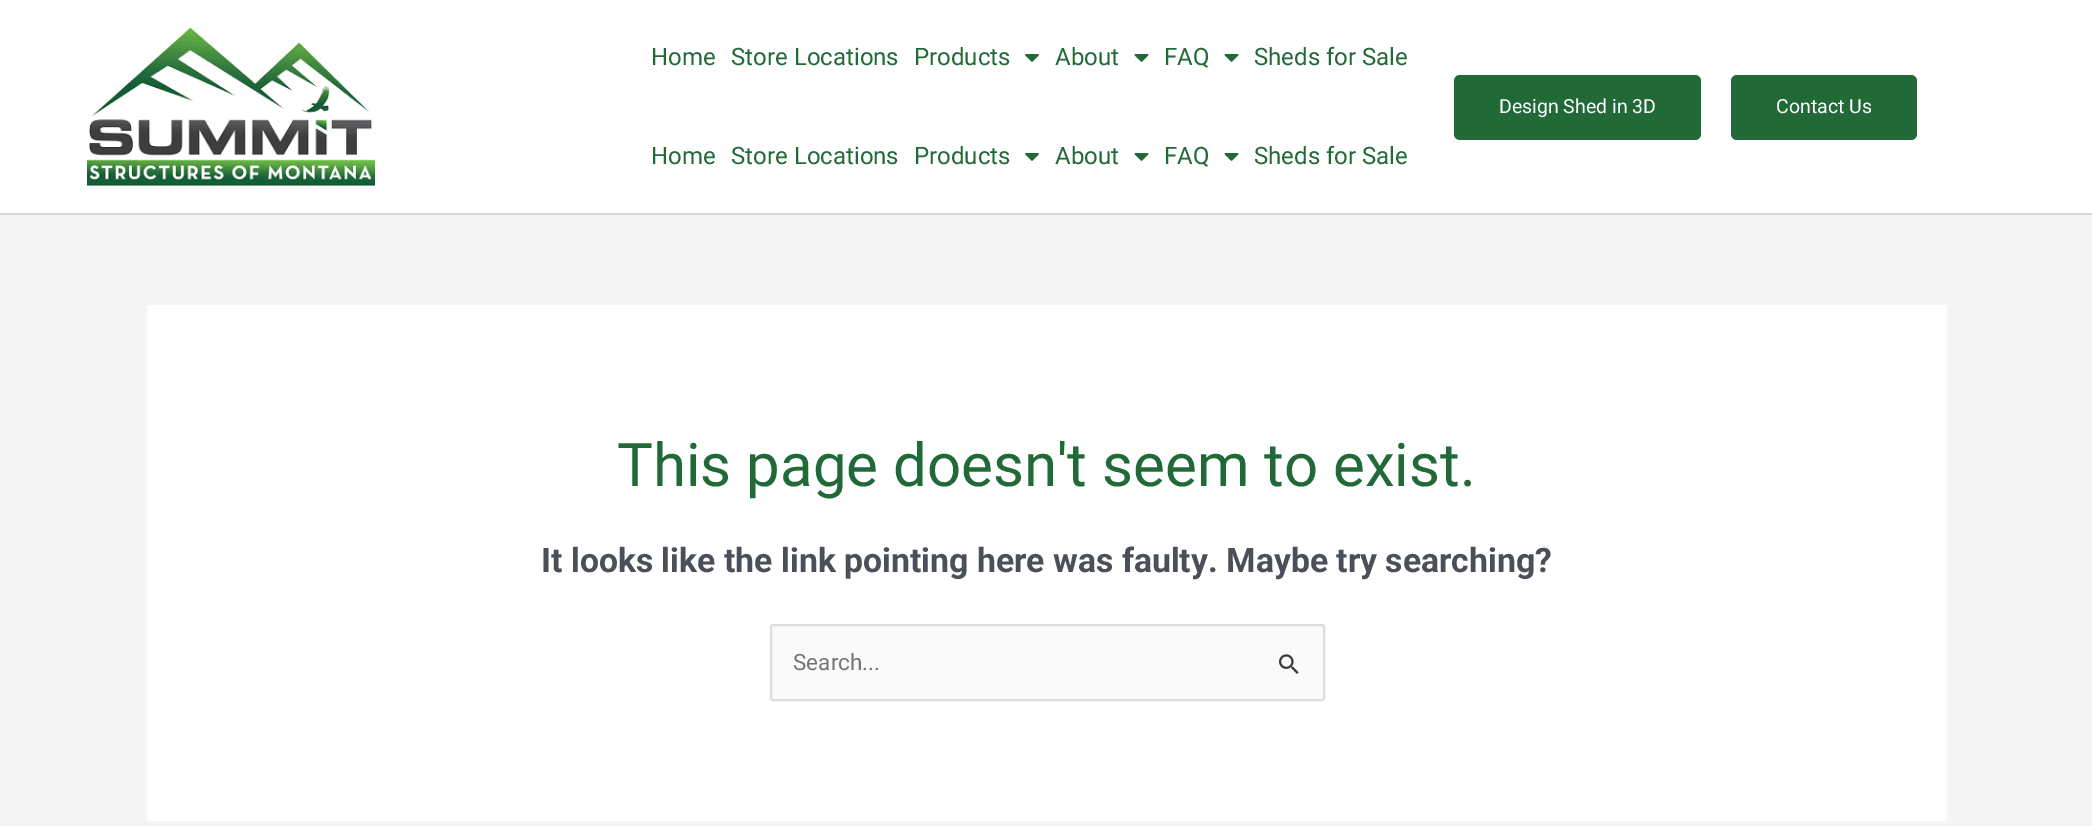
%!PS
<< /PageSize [2092 826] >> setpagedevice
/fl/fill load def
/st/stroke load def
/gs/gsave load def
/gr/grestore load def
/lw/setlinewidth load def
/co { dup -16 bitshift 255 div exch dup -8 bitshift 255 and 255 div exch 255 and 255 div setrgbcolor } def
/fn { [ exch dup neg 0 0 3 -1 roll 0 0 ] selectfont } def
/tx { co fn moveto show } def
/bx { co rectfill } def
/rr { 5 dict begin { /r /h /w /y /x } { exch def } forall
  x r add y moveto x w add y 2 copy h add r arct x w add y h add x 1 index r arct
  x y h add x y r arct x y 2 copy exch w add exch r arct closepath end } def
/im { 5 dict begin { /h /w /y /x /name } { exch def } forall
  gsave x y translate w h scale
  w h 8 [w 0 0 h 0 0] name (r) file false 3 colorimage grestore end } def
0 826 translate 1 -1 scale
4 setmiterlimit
0 0 2092 826 16#F5F5F5 bx
0 0 2092 213 16#FFFFFF bx
0 213 2092 2 16#D6D6D6 bx
(media/1.raw) 87 28 288 158 im
(media/2.raw) 1025 54 14 8 im
(media/3.raw) 1134 54 15 8 im
(media/3.raw) 1224 54 15 8 im
(media/2.raw) 1025 153 14 8 im
(media/3.raw) 1134 153 15 8 im
(media/3.raw) 1224 153 15 8 im
16#226938 co
1454 75 247 65 6 rr fl
1731 75 186 65 6 rr fl
147 305 1800 516 16#FFFFFF bx
16#FAFAFA co
771 625 553 75 2 rr gs fl gr
16#DDDDDD co
2 lw
st
(media/4.raw) 1279 654 20 20 im
(Home) 651 65 /Roboto-Regular 24 16#226938 tx
(Store Locations) 731 65 /Roboto-Regular 24 16#226938 tx
(Products) 914 65 /Roboto-Regular 24 16#226938 tx
(About) 1055 65 /Roboto-Regular 24 16#226938 tx
(FAQ) 1164 65 /Roboto-Regular 24 16#226938 tx
(Sheds for Sale) 1254 65 /Roboto-Regular 24 16#226938 tx
(Home) 651 164 /Roboto-Regular 24 16#226938 tx
(Store Locations) 731 164 /Roboto-Regular 24 16#226938 tx
(Products) 914 164 /Roboto-Regular 24 16#226938 tx
(About) 1055 164 /Roboto-Regular 24 16#226938 tx
(FAQ) 1164 164 /Roboto-Regular 24 16#226938 tx
(Sheds for Sale) 1254 164 /Roboto-Regular 24 16#226938 tx
(Design Shed in 3D) 1499 113 /Roboto-Regular 19.5 16#FFFFFF tx
(Contact Us) 1776 113 /Roboto-Regular 19.5 16#FFFFFF tx
(This page doesn't seem to exist.) 617 486 /Roboto-Regular 60 16#226938 tx
(It looks like the link pointing here was faulty. Maybe try searching?) 541 572 /Roboto-Bold 33.75 16#4B4F58 tx
(Search...) 793 670 /Roboto-Regular 22.5 16#757575 tx
showpage
